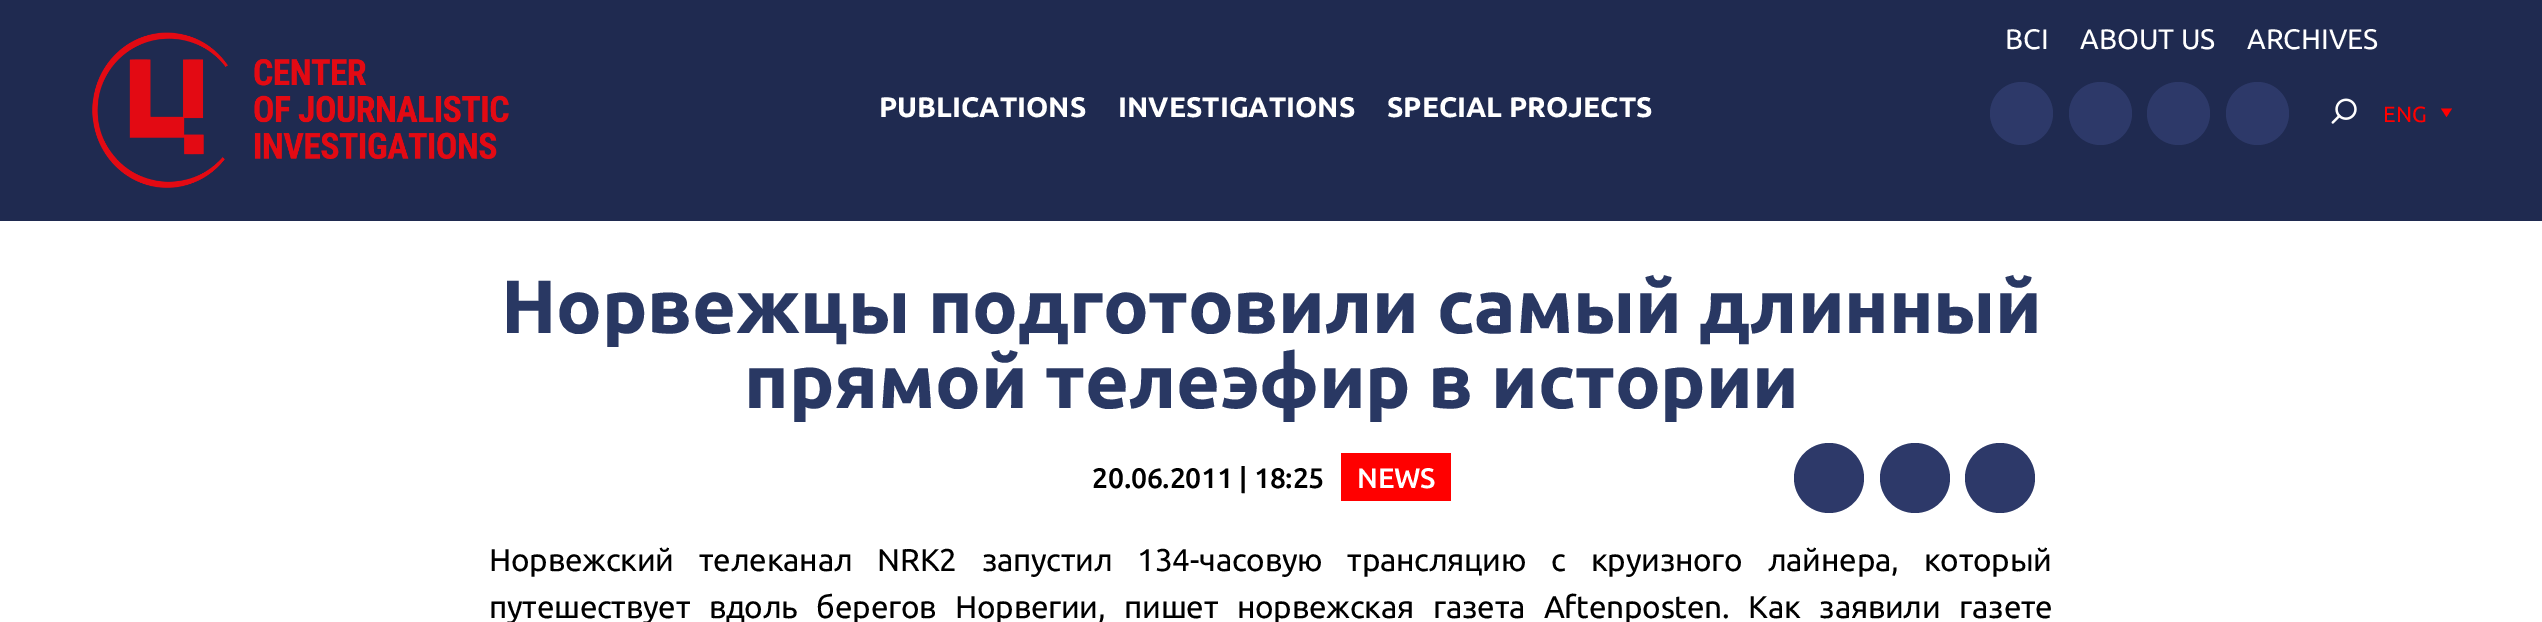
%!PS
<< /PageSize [2542 622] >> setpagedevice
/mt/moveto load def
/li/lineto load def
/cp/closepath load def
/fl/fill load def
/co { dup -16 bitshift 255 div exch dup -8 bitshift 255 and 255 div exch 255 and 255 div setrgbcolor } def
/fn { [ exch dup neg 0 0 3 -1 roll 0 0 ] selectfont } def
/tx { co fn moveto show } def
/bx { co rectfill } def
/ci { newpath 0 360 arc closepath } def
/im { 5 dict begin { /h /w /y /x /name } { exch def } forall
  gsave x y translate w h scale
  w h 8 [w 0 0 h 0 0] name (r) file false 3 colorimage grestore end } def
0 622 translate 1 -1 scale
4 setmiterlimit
0 0 2542 622 16#FFFFFF bx
0 0 2542 221 16#1F2A50 bx
(media/1.raw) 92 32 417 156 im
16#2D3969 co
2021.5 113.5 31.5 ci fl
2100.5 113.5 31.5 ci fl
2178.5 113.5 31.5 ci fl
2257.5 113.5 31.5 ci fl
(media/2.raw) 2331 98 26 26 im
16#FF0000 co
2441 108.5 mt 2452 108.5 li 2446.5 117 li cp fl
1341 453 110 48 16#FF0000 bx
16#2D3969 co
1829 478 35 ci fl
1915 478 35 ci fl
2000 478 35 ci fl
(PUBLICATIONS) 879 117 /Ubuntu-Bold 28.25 16#FFFFFF tx
(INVESTIGATIONS) 1118 117 /Ubuntu-Bold 28.25 16#FFFFFF tx
(SPECIAL PROJECTS) 1387 117 /Ubuntu-Bold 28.25 16#FFFFFF tx
(BCI) 2005 49 /Ubuntu-Regular 28.25 16#FFFFFF tx
(ABOUT US) 2080 49 /Ubuntu-Regular 28.25 16#FFFFFF tx
(ARCHIVES) 2247 49 /Ubuntu-Regular 28.25 16#FFFFFF tx
(ENG) 2383 122 /Ubuntu-Regular 22 16#FF0000 tx
/Ubuntu-Bold 75.6 fn
16#293863 co
501 333 mt -.25 0 (Норвежцы подготовили самый длинный) ashow
744 408 mt -.25 0 (прямой телеэфир в истории) ashow
/Ubuntu-Medium 28.25 fn
16#000000 co
1092 488 mt -.25 0 (20.06.2011 | 18:25) ashow
16#FFFFFF co
1357 488 mt -.25 0 (NEWS) ashow
/Ubuntu-Regular 31.5 fn
16#000000 co
489 571 mt 18 0 32 -.25 0 (Норвежский телеканал NRK2 запустил 134-часовую трансляцию с круизного лайнера, который) awidthshow
489 618 mt 11.75 0 32 -.25 0 (путешествует вдоль берегов Норвегии, пишет норвежская газета Аftenposten. Как заявили газете) awidthshow
showpage
